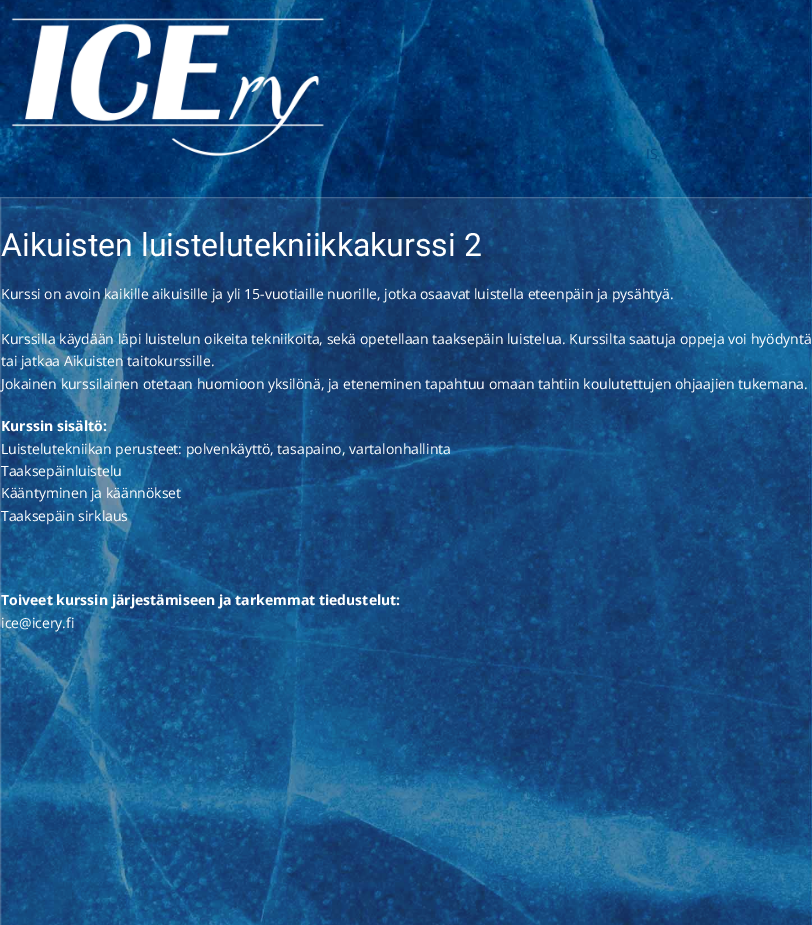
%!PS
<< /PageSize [812 925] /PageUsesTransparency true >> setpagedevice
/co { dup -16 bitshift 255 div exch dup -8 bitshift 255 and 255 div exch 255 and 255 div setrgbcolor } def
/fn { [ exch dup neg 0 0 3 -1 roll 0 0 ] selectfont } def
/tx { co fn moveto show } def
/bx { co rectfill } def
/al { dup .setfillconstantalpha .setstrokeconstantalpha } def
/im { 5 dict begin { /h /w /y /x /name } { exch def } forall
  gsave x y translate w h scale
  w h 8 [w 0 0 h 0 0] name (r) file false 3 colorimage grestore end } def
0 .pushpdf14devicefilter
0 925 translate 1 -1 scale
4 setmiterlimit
0 0 812 925 16#FFFFFF bx
(media/1.raw) 0 0 812 925 im
(media/2.raw) 11 18 313 138 im
0.08 al
0 197 812 728 16#FFFFFF bx
0.2 al
.5 197.5 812 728 rectstroke
1 al
(IS) 646 159 /OpenSans-Regular 14 16#054B83 tx
(Aikuisten luistelutekniikkakurssi 2) 1 256 /Roboto-Regular 32 16#FFFFFF tx
(Kurssi on avoin kaikille aikuisille ja yli 15-vuotiaille nuorille, jotka osaavat luistella eteenpäin ja pysähtyä.) 1 299 /OpenSans-Regular 14 16#FFFFFF tx
(Kurssilla käydään läpi luistelun oikeita tekniikoita, sekä opetellaan taaksepäin luistelua. Kurssilta saatuja oppeja voi hyödyntä) 1 344 /OpenSans-Regular 14 16#FFFFFF tx
(tai jatkaa Aikuisten taitokurssille.) 1 366 /OpenSans-Regular 14 16#FFFFFF tx
(Jokainen kurssilainen otetaan huomioon yksilönä, ja eteneminen tapahtuu omaan tahtiin koulutettujen ohjaajien tukemana.) 1 389 /OpenSans-Regular 14 16#FFFFFF tx
(Kurssin sisältö:) 1 431 /OpenSans-Bold 14 16#FFFFFF tx
(Luistelutekniikan perusteet: polvenkäyttö, tasapaino, vartalonhallinta) 1 454 /OpenSans-Regular 14 16#FFFFFF tx
(Taaksepäinluistelu) 1 476 /OpenSans-Regular 14 16#FFFFFF tx
(Kääntyminen ja käännökset) 1 498 /OpenSans-Regular 14 16#FFFFFF tx
(Taaksepäin sirklaus) 1 521 /OpenSans-Regular 14 16#FFFFFF tx
(Toiveet kurssin järjestämiseen ja tarkemmat tiedustelut:) 1 605 /OpenSans-Bold 14 16#FFFFFF tx
(ice@icery.fi) 1 628 /OpenSans-Regular 14 16#FFFFFF tx
.poppdf14devicefilter showpage
